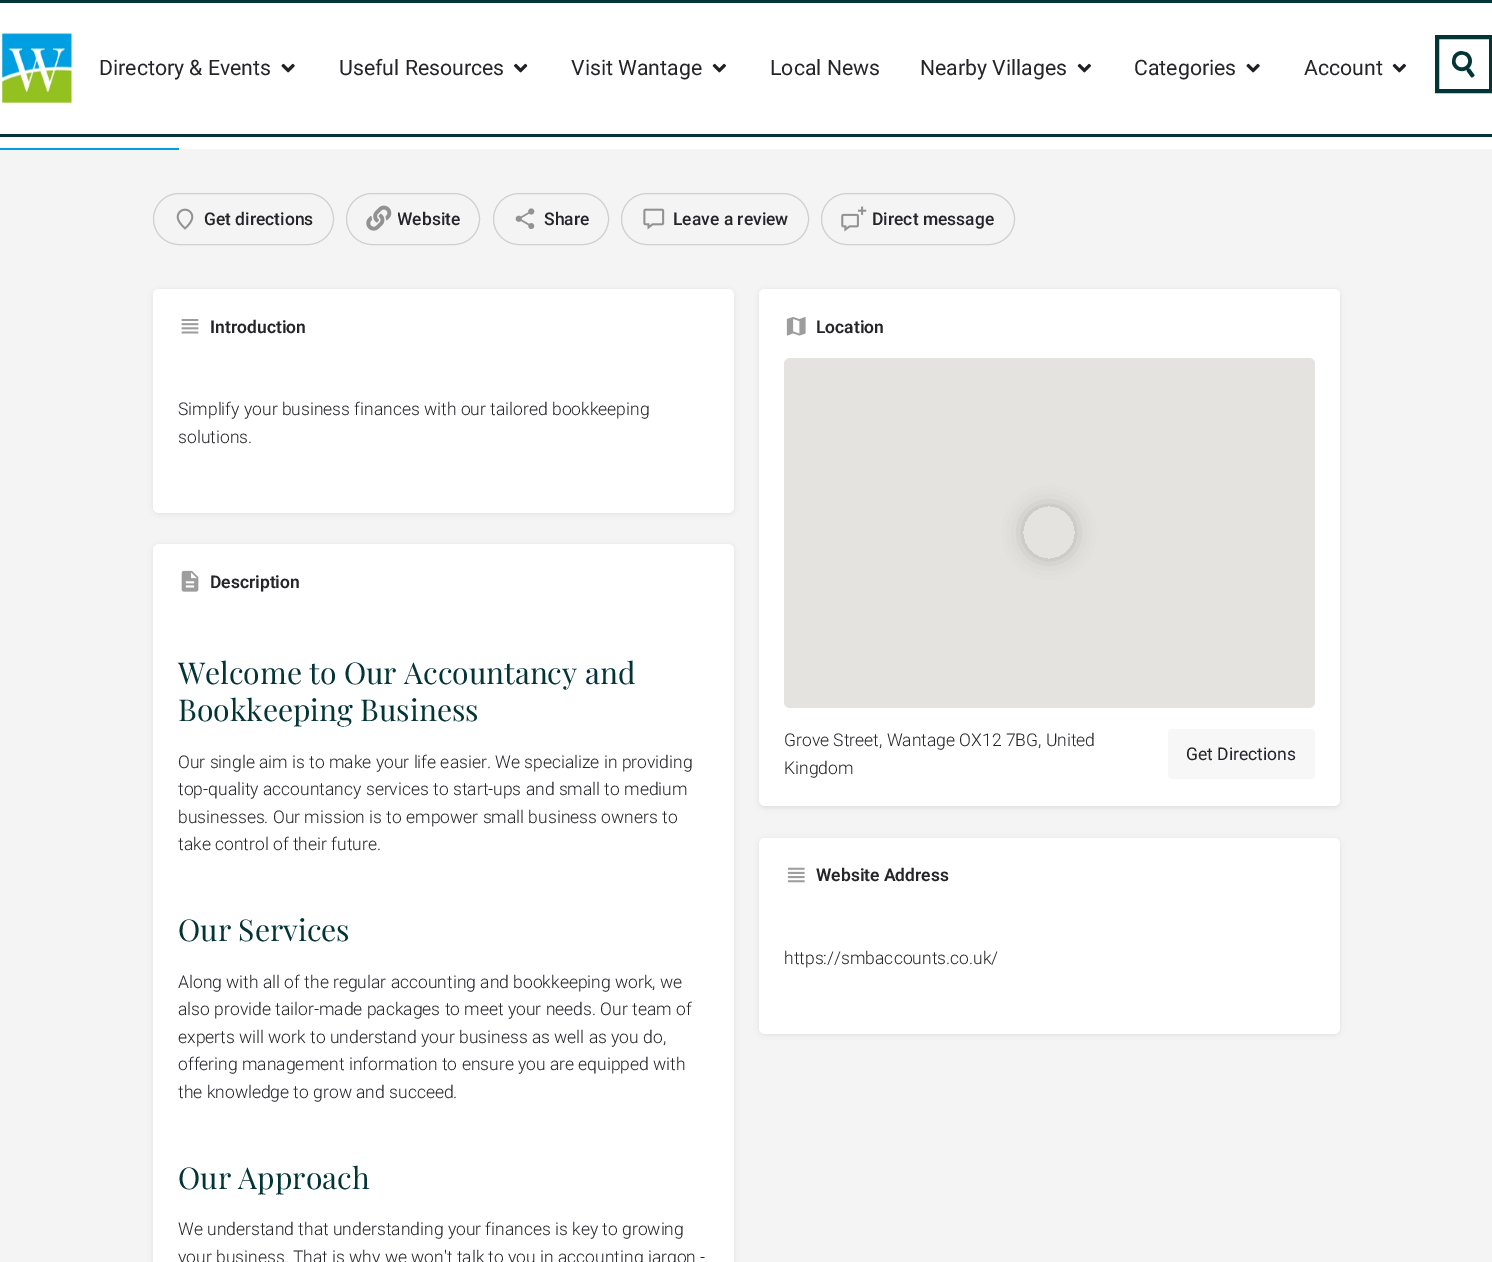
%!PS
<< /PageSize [1492 1262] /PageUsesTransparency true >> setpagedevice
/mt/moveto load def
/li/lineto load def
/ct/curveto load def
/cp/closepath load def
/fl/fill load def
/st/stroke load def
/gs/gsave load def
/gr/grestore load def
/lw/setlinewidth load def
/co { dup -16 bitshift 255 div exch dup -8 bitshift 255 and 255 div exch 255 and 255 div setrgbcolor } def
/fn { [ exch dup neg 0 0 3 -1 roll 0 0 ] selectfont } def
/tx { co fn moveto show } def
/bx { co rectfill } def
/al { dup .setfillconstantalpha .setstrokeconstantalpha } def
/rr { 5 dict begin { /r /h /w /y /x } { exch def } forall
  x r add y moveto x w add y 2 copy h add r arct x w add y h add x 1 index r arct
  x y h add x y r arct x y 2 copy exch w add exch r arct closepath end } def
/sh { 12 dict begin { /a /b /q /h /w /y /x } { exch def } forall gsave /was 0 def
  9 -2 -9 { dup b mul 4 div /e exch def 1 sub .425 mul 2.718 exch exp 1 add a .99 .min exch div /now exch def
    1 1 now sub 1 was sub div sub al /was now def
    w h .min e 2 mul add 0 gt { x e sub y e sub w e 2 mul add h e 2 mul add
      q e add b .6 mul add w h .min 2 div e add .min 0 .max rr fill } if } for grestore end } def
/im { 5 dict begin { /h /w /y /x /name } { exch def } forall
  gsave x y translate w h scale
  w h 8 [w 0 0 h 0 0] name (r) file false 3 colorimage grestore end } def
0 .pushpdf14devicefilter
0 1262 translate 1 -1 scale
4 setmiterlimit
0 0 1492 1262 16#F4F4F4 bx
0 3 1492 131 16#FFFFFF bx
0 0 1492 3 16#033537 bx
0 134 1492 3 16#033537 bx
(media/1.raw) 0 32 74 73 im
(media/2.raw) 281 63 14 10 im
(media/3.raw) 514 63 14 10 im
(media/4.raw) 712 63 14 10 im
(media/4.raw) 1077 63 14 10 im
(media/2.raw) 1246 63 14 10 im
(media/4.raw) 1392 63 14 10 im
4 lw
1437 37 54 54 rectstroke
(media/5.raw) 1451 51 24 27 im
0 137 1492 12 16#FFFFFF bx
0 148 179 2 16#009FE3 bx
16#CFCFCF co
1 lw
153.5 193.5 180 51 25.5 rr st
(media/6.raw) 176 208 18 22 im
346.5 193.5 133 51 25.5 rr st
(media/7.raw) 366 205 26 26 im
493.5 193.5 115 51 25.5 rr st
(media/8.raw) 515 208 20 21 im
621.5 193.5 187 51 25.5 rr st
(media/9.raw) 643 208 22 22 im
821.5 193.5 193 51 25.5 rr st
(media/10.raw) 841 206 26 26 im
16#000000 co
153 290 581 224 6 2.5 .07 sh
16#FFFFFF co
153 289 581 224 6 rr fl
(media/11.raw) 181 319 18 15 im
16#000000 co
153 545 581 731 6 2.5 .07 sh
16#FFFFFF co
153 544 581 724 6 rr fl
(media/12.raw) 181 570 18 22 im
16#000000 co
759 290 581 518 6 2.5 .07 sh
16#FFFFFF co
759 289 581 517 6 rr fl
(media/13.raw) 786 317 20 19 im
16#E5E3DF co
784 358 531 350 6 rr fl
gs
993 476 mt 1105 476 li 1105 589 li 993 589 li cp 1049 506 mt 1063.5 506 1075 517.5 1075 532 ct 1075 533 li 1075 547.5 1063.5 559 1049 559 ct 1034.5 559 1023 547.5 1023 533 ct 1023 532 li 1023 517.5 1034.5 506 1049 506 ct cp eoclip newpath
16#000000 co
1023 506 52 53 26 9.5 .2 sh
gr
16#F7F7F7 co
1168 729 147 50 4 rr fl
16#000000 co
759 839 581 196 6 2.5 .07 sh
16#FFFFFF co
759 838 581 196 6 rr fl
(media/14.raw) 787 867 18 16 im
(Directory & Events) 99 75 /Roboto-Regular 21.25 16#242429 tx
(Useful Resources) 339 75 /Roboto-Regular 21.25 16#242429 tx
(Visit Wantage) 571 75 /Roboto-Regular 21.25 16#242429 tx
(Local News) 770 75 /Roboto-Regular 21.25 16#242429 tx
(Nearby Villages) 920 75 /Roboto-Regular 21.25 16#242429 tx
(Categories) 1134 75 /Roboto-Regular 21.25 16#242429 tx
(Account) 1304 75 /Roboto-Regular 21.25 16#242429 tx
(Get directions) 204 225 /Roboto-Medium 17.5 16#242429 tx
gs
398 206 62 25 rectclip
(Website) 397 225 /Roboto-Medium 17.5 16#242429 tx
gr
(Share) 544 225 /Roboto-Medium 17.5 16#242429 tx
(Leave a review) 673 225 /Roboto-Medium 17.5 16#242429 tx
(Direct message) 872 225 /Roboto-Medium 17.5 16#242429 tx
(Introduction) 210 333 /Roboto-SemiBold 17.5 16#242429 tx
(Simplify your business finances with our tailored bookkeeping) 178 415 /Roboto-Light 17.5 16#242429 tx
(solutions.) 178 443 /Roboto-Light 17.5 16#242429 tx
(Description) 210 588 /Roboto-SemiBold 17.5 16#242429 tx
(Welcome to Our Accountancy and) 178 684 /PlayfairDisplay-Regular 30 16#033537 tx
(Bookkeeping Business) 178 721 /PlayfairDisplay-Regular 30 16#033537 tx
(Our single aim is to make your life easier. We specialize in providing) 178 768 /Roboto-Light 17.5 16#242429 tx
(top-quality accountancy services to start-ups and small to medium) 178 795 /Roboto-Light 17.5 16#242429 tx
(businesses. Our mission is to empower small business owners to) 178 823 /Roboto-Light 17.5 16#242429 tx
(take control of their future.) 178 850 /Roboto-Light 17.5 16#242429 tx
(Our Services) 178 941 /PlayfairDisplay-Regular 30 16#033537 tx
(Along with all of the regular accounting and bookkeeping work, we) 178 988 /Roboto-Light 17.5 16#242429 tx
(also provide tailor-made packages to meet your needs. Our team of) 178 1015 /Roboto-Light 17.5 16#242429 tx
(experts will work to understand your business as well as you do,) 178 1043 /Roboto-Light 17.5 16#242429 tx
(offering management information to ensure you are equipped with) 178 1070 /Roboto-Light 17.5 16#242429 tx
(the knowledge to grow and succeed.) 178 1098 /Roboto-Light 17.5 16#242429 tx
(Our Approach) 178 1189 /PlayfairDisplay-Regular 30 16#033537 tx
(We understand that understanding your finances is key to growing) 178 1235 /Roboto-Light 17.5 16#242429 tx
(your business. That is why we won't talk to you in accounting jargon -) 178 1263 /Roboto-Light 17.5 16#242429 tx
(Location) 816 333 /Roboto-SemiBold 17.5 16#242429 tx
(Grove Street, Wantage OX12 7BG, United) 784 746 /Roboto-Light 17.5 16#242429 tx
(Kingdom) 784 774 /Roboto-Light 17.5 16#242429 tx
(Get Directions) 1186 760 /Roboto-Regular 17.5 16#242429 tx
(Website Address) 816 881 /Roboto-SemiBold 17.5 16#242429 tx
(https://smbaccounts.co.uk/) 784 964 /Roboto-Light 17.5 16#242429 tx
.poppdf14devicefilter showpage
